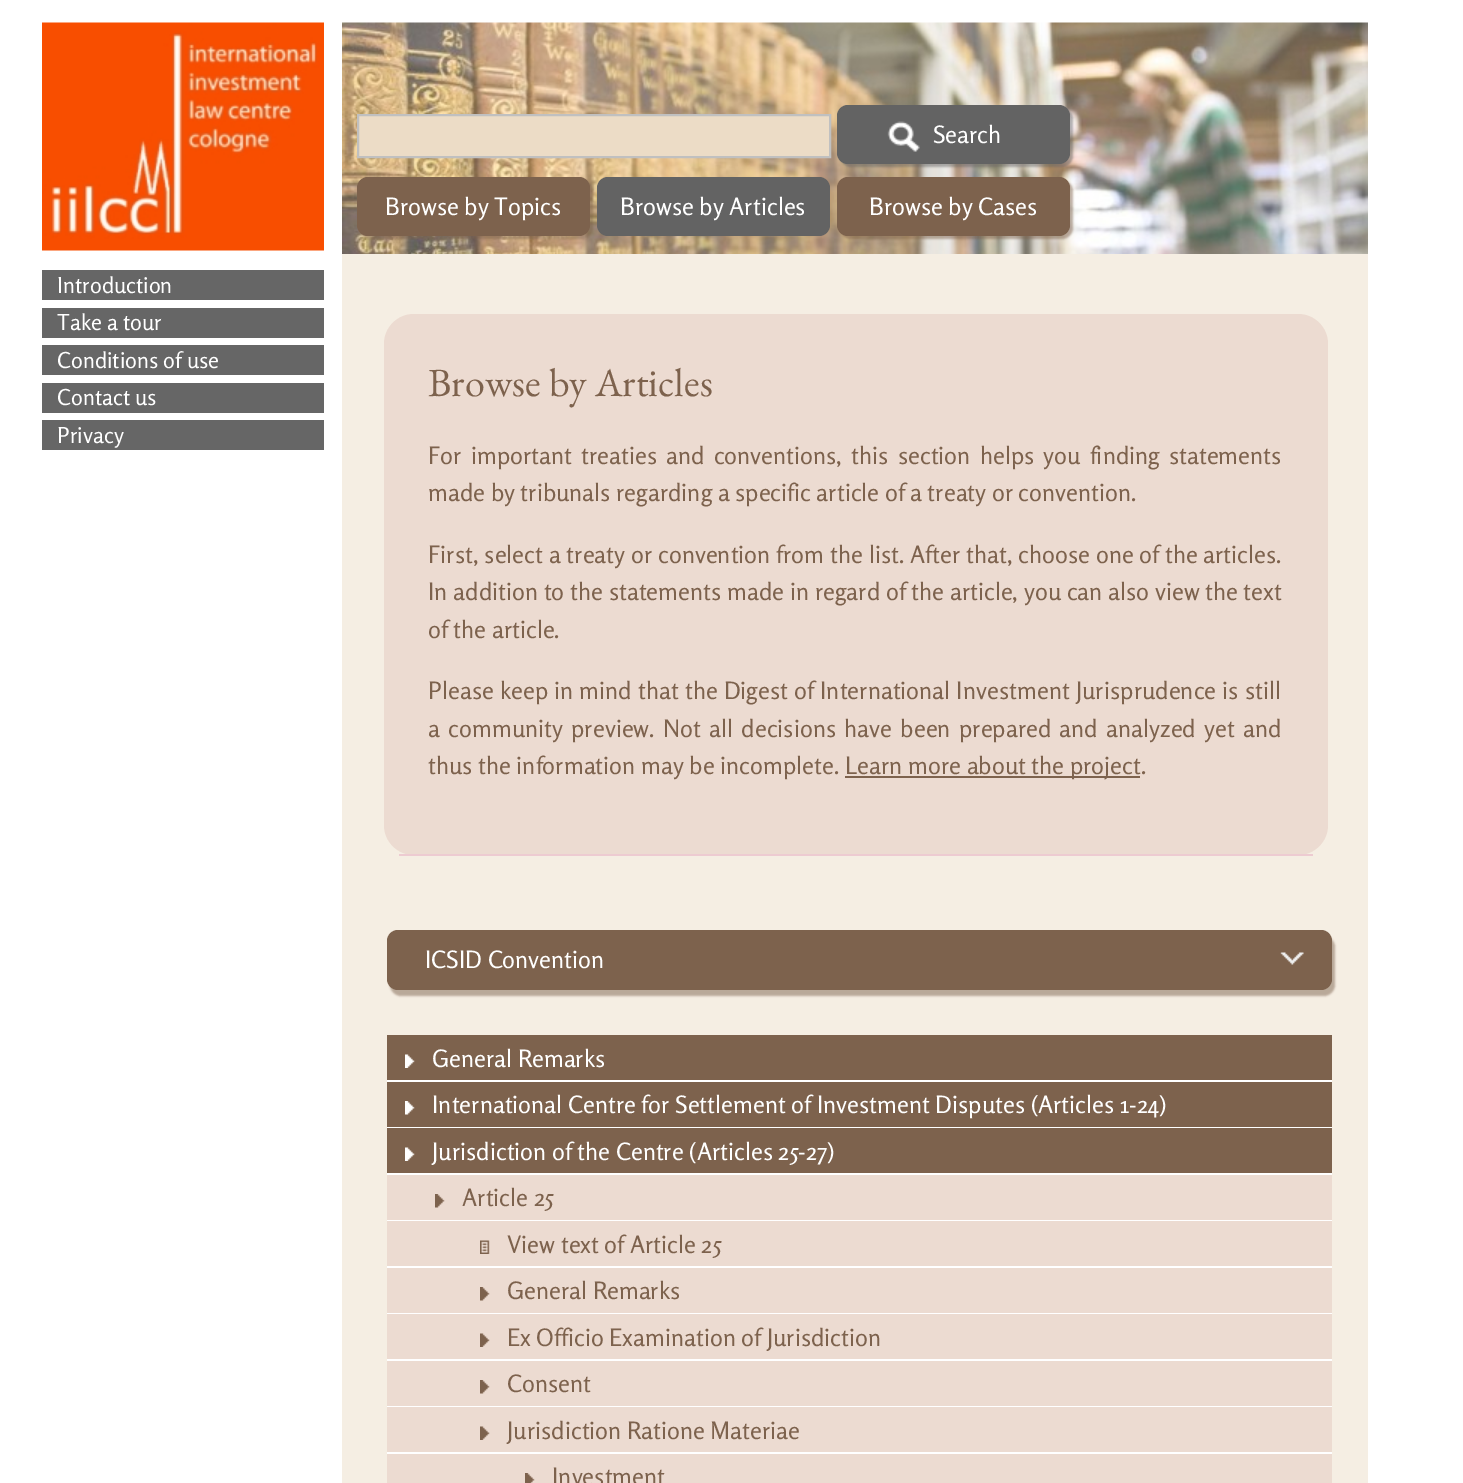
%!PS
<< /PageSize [1463 1483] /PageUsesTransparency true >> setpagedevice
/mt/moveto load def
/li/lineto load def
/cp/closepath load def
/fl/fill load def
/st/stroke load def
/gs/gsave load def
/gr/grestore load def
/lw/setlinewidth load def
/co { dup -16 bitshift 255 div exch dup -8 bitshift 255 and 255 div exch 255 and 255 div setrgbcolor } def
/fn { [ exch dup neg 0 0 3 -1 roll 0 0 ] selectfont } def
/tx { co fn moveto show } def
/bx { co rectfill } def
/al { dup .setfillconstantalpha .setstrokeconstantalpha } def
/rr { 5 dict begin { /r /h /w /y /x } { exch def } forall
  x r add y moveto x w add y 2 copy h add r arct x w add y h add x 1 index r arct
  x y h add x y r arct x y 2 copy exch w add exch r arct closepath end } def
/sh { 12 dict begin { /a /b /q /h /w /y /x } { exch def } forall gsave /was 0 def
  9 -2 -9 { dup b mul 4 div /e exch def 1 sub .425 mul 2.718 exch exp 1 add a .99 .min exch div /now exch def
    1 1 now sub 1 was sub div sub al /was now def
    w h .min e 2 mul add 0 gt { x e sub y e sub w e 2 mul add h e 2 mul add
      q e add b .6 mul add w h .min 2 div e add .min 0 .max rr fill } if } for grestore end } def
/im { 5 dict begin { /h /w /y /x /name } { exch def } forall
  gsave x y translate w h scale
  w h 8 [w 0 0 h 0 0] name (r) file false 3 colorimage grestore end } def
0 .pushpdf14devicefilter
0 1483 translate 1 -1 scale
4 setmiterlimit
0 0 1463 1483 16#FFFFFF bx
(media/1.raw) 42 22 282 229 im
(media/2.raw) 342 22 1026 232 im
16#ECDCC6 co
358 115 mt 830 115 li 830 157 li 358 157 li cp gs fl gr
16#C0C0C0 co
2 lw
st
16#636363 co
840 108 233 59 11 1 .5 sh
837 105 233 59 11 rr fl
(media/3.raw) 887 121 33 31 im
16#7D624C co
360 180 233 59 11 1 .5 sh
16#7D624D co
357 177 233 59 11 rr fl
16#636363 co
597 177 233 59 11 rr fl
16#7D624C co
840 180 233 59 11 1 .5 sh
16#7D624D co
837 177 233 59 11 rr fl
42 270 282 30 16#666666 bx
42 308 282 30 16#666666 bx
42 345 282 30 16#666666 bx
42 383 282 30 16#666666 bx
342 254 1026 1229 16#F5EEE3 bx
16#ECDBD1 co
384 314 944 541 30 rr fl
399 854 914 2 16#EDCBD1 bx
845 776 295 2 16#7D624D bx
16#7D624C co
390 936 945 60 11 1 .5 sh
16#7D624D co
387 930 945 60 11 rr fl
(media/4.raw) 1280 952 24 13 im
387 1035 945 45 16#7D624D bx
387 1080 945 2 16#FFFFFF bx
(media/5.raw) 405 1054 10 14 im
387 1082 945 45 16#7D624D bx
387 1127 945 1 16#FFFFFF bx
(media/6.raw) 405 1101 10 14 im
387 1128 945 45 16#7D624D bx
387 1173 945 2 16#FFFFFF bx
(media/5.raw) 405 1147 10 14 im
387 1175 945 45 16#ECDBD1 bx
387 1220 945 1 16#FFFFFF bx
(media/7.raw) 435 1194 10 14 im
387 1221 945 45 16#ECDBD1 bx
387 1266 945 2 16#FFFFFF bx
(media/8.raw) 480 1240 10 14 im
387 1268 945 45 16#ECDBD1 bx
387 1313 945 1 16#FFFFFF bx
(media/7.raw) 480 1287 10 14 im
387 1314 945 45 16#ECDBD1 bx
387 1359 945 2 16#FFFFFF bx
(media/9.raw) 480 1333 10 14 im
387 1361 945 45 16#ECDBD1 bx
387 1406 945 1 16#FFFFFF bx
(media/7.raw) 480 1380 10 14 im
387 1407 945 45 16#ECDBD1 bx
387 1452 945 2 16#FFFFFF bx
(media/9.raw) 480 1426 10 14 im
387 1454 945 29 16#ECDBD1 bx
(media/10.raw) 525 1473 10 10 im
42 420 282 30 16#666666 bx
(Search) 933 143 /Rosario-Regular 24 16#FFFFFF tx
(Browse by Topics) 385 215 /Rosario-Regular 24 16#FFFFFF tx
(Browse by Articles) 620 215 /Rosario-Regular 24 16#FFFFFF tx
(Browse by Cases) 869 215 /Rosario-Regular 24 16#FFFFFF tx
(Introduction) 57 293 /Rosario-Regular 22 16#FFFFFF tx
(Take a tour) 57 330 /Rosario-Regular 22 16#FFFFFF tx
(Conditions of use) 57 368 /Rosario-Regular 22 16#FFFFFF tx
(Contact us) 57 405 /Rosario-Regular 22 16#FFFFFF tx
(Browse by Articles) 428 396 /EBGaramond-Regular 40 16#7D624D tx
/Rosario-Regular 24 fn
428 464 mt 3.6 0 32 (For important treaties and conventions, this section helps you finding statements) widthshow
(made by tribunals regarding a specific article of a treaty or convention.) 428 501 /Rosario-Regular 24 16#7D624D tx
428 563 mt .25 0 32 (First, select a treaty or convention from the list. After that, choose one of the) widthshow
(articles.) 1203 563 /Rosario-Regular 24 16#7D624D tx
428 600 mt .2 0 32 (In addition to the statements made in regard of the article, you can also) widthshow
(view the text) 1155 600 /Rosario-Regular 24 16#7D624D tx
(of the article.) 428 638 /Rosario-Regular 24 16#7D624D tx
428 699 mt .6 0 32 (Please keep in mind that the Digest of International Investment Jurisprudence is) widthshow
(still) 1245 699 /Rosario-Regular 24 16#7D624D tx
428 737 mt 2.75 0 32 (a community preview. Not all decisions have been prepared and analyzed yet) widthshow
(and) 1243 737 /Rosario-Regular 24 16#7D624D tx
(thus the information may be incomplete. Learn) 428 774 /Rosario-Regular 24 16#7D624D tx
(more about the project.) 908 774 /Rosario-Regular 24 16#7D624D tx
(ICSID Convention) 425 968 /Rosario-Regular 24 16#FFFFFF tx
(General Remarks) 432 1067 /Rosario-Regular 24 16#FFFFFF tx
(International Centre for Settlement of Investment Disputes \(Articles 1-24\)) 432 1113 /Rosario-Regular 24 16#FFFFFF tx
(Jurisdiction of the Centre \(Articles 25-27\)) 432 1160 /Rosario-Regular 24 16#FFFFFF tx
(Article 25) 462 1206 /Rosario-Regular 24 16#7D624D tx
(View text of Article 25) 507 1253 /Rosario-Regular 24 16#7D624D tx
(General Remarks) 507 1299 /Rosario-Regular 24 16#7D624D tx
(Ex Officio Examination of Jurisdiction) 507 1346 /Rosario-Regular 24 16#7D624D tx
(Consent) 507 1392 /Rosario-Regular 24 16#7D624D tx
(Jurisdiction Ratione Materiae) 507 1439 /Rosario-Regular 24 16#7D624D tx
(Investment) 552 1485 /Rosario-Regular 24 16#7D624D tx
(Privacy) 57 443 /Rosario-Regular 22 16#FFFFFF tx
.poppdf14devicefilter showpage
